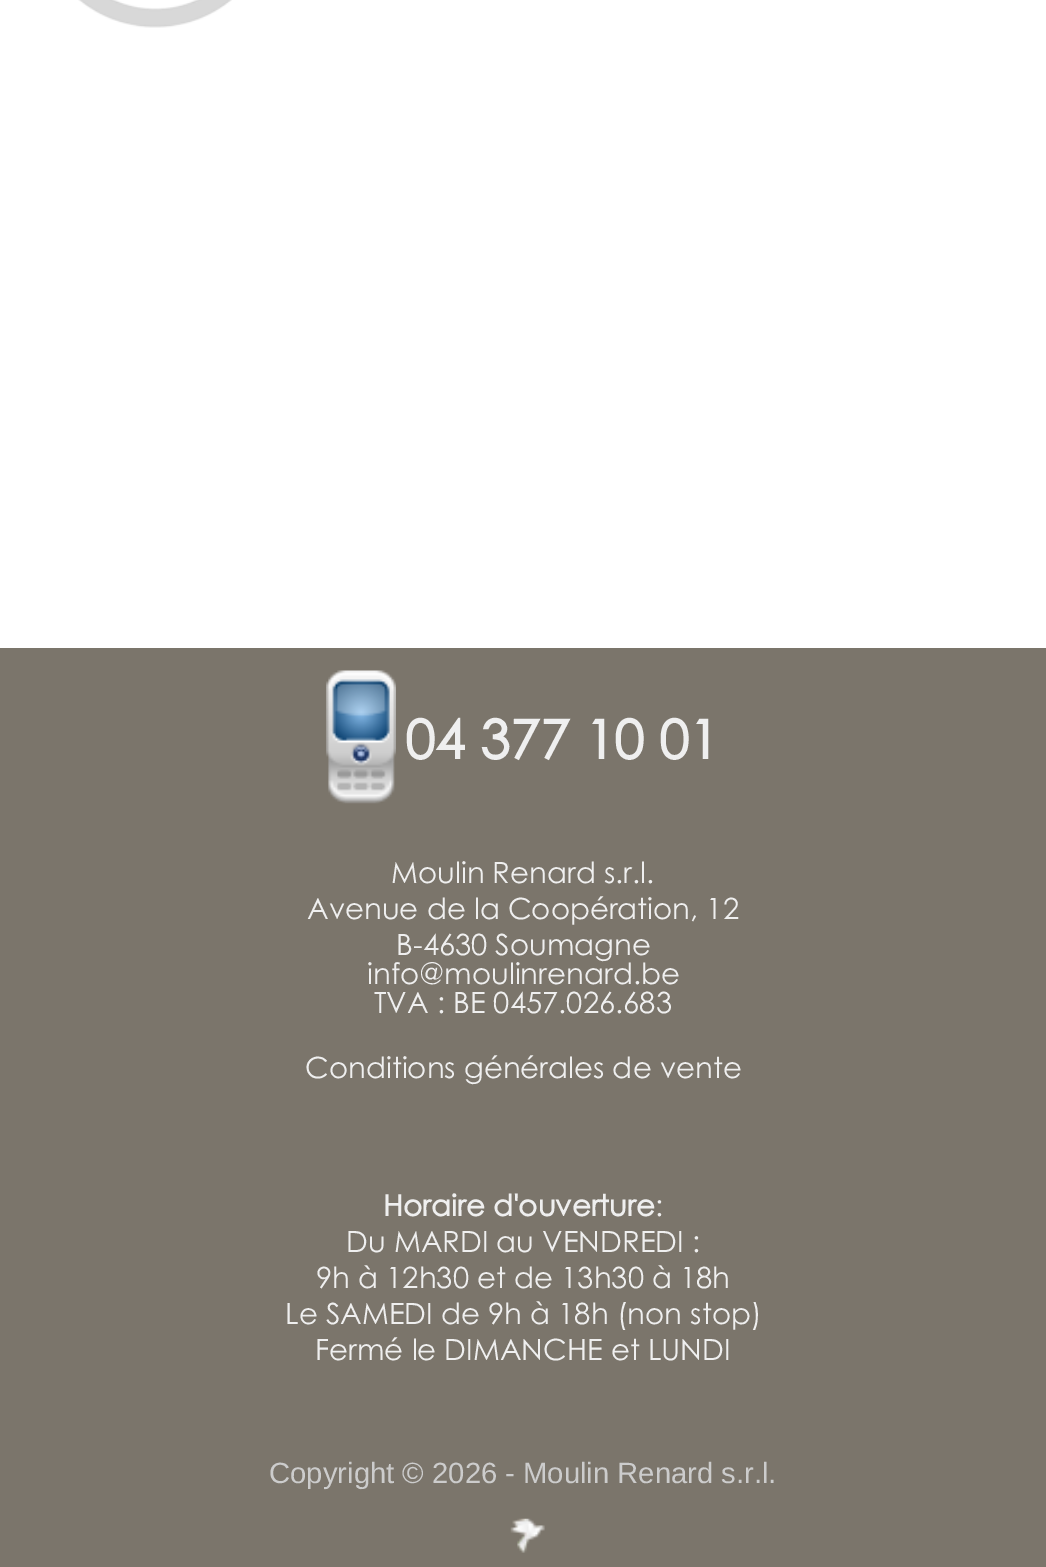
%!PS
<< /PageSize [1046 1567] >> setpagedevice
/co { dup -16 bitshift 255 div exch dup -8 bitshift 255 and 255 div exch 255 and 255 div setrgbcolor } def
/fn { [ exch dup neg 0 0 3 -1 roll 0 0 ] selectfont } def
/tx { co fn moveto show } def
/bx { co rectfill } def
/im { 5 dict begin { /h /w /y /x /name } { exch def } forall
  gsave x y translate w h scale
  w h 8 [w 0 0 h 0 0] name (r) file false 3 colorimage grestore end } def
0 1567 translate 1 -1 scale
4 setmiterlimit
0 0 1046 1567 16#FFFFFF bx
(media/1.raw) 78 0 154 28 im
0 648 1046 919 16#7B756B bx
(media/2.raw) 326 670 70 134 im
(media/3.raw) 510 1518 35 35 im
(04 377 10 01) 405 759 /CenturyGothic-Bold 54 16#EFEFEF tx
(Moulin Renard s.r.l.) 391 883 /CenturyGothic-Regular 29.25 16#EFEFEF tx
(Avenue de la Coopération, 12) 307 919 /CenturyGothic-Regular 29.25 16#EFEFEF tx
(B-4630 Soumagne) 396 955 /CenturyGothic-Regular 29.25 16#EFEFEF tx
(info@moulinrenard.be) 367 984 /CenturyGothic-Regular 29.25 16#EFEFEF tx
(TVA : BE 0457.026.683) 374 1013 /CenturyGothic-Regular 29.25 16#EFEFEF tx
(Conditions générales de vente) 305 1078 /CenturyGothic-Regular 29.25 16#EFEFEF tx
(Horaire d'ouverture) 383 1216 /CenturyGothic-Bold 29.25 16#EFEFEF tx
(:) 655 1216 /CenturyGothic-Regular 29.25 16#EFEFEF tx
(Du MARDI au VENDREDI :) 346 1252 /CenturyGothic-Regular 29.25 16#EFEFEF tx
(9h à 12h30 et de 13h30 à 18h) 316 1288 /CenturyGothic-Regular 29.25 16#EFEFEF tx
(Le SAMEDI de 9h à 18h \(non stop\)) 285 1324 /CenturyGothic-Regular 29.25 16#EFEFEF tx
(Fermé le DIMANCHE et LUNDI) 315 1360 /CenturyGothic-Regular 29.25 16#EFEFEF tx
(Copyright © 2026 - Moulin Renard s.r.l.) 269 1483 /LiberationSans-Regular 29.25 16#CCCCCC tx
showpage
